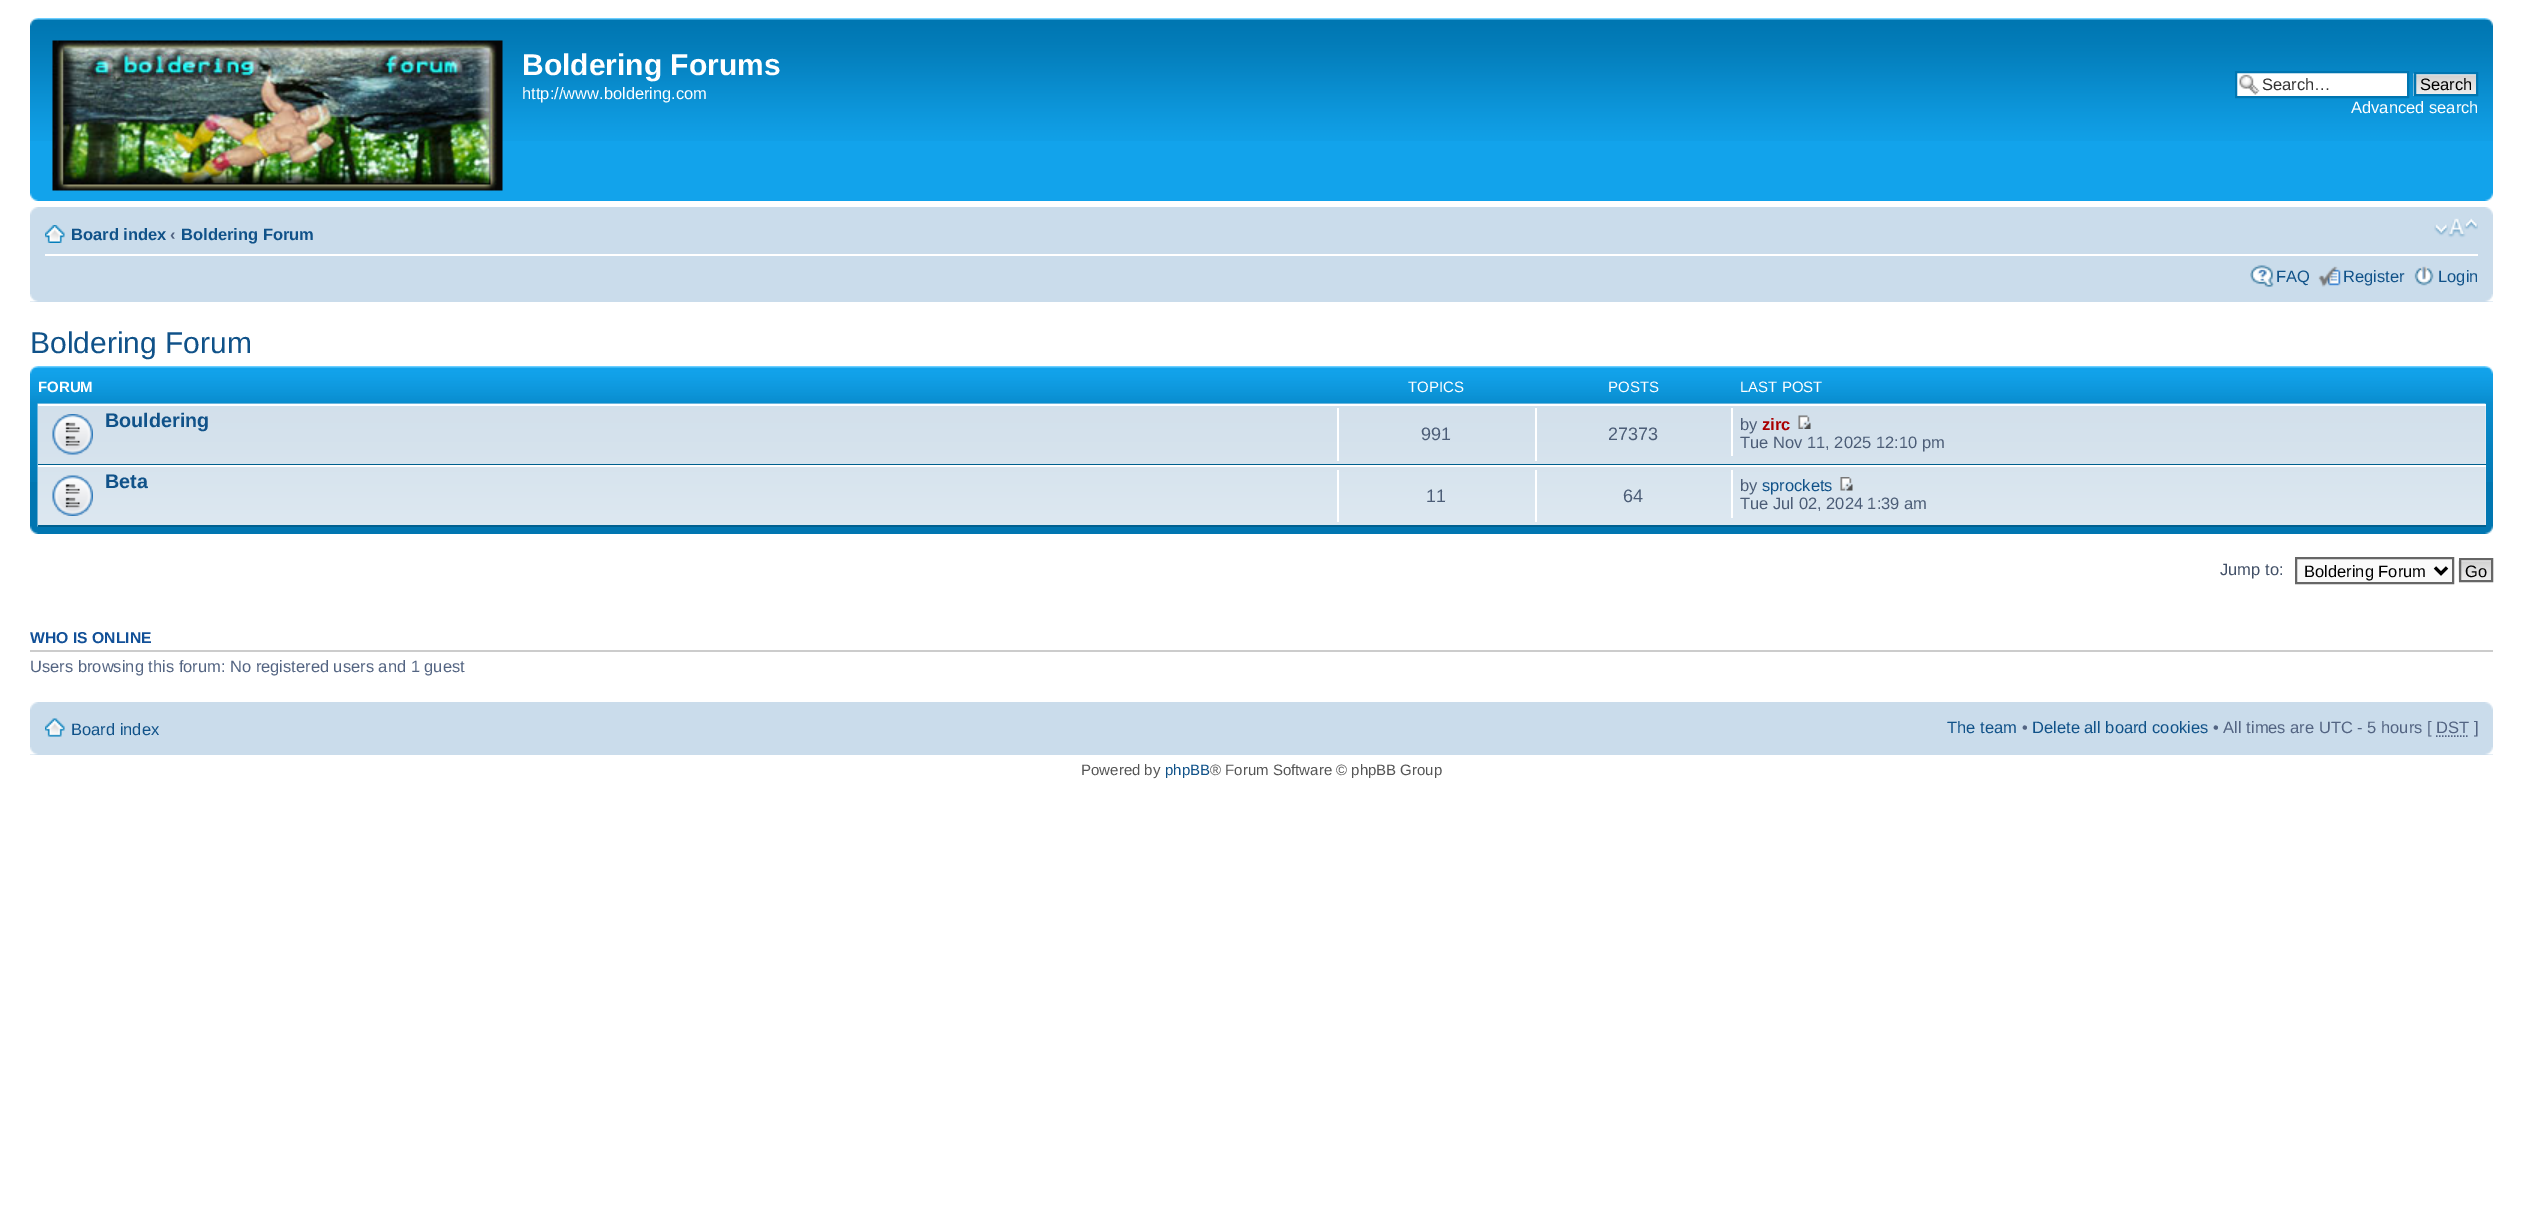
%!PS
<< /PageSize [2522 1210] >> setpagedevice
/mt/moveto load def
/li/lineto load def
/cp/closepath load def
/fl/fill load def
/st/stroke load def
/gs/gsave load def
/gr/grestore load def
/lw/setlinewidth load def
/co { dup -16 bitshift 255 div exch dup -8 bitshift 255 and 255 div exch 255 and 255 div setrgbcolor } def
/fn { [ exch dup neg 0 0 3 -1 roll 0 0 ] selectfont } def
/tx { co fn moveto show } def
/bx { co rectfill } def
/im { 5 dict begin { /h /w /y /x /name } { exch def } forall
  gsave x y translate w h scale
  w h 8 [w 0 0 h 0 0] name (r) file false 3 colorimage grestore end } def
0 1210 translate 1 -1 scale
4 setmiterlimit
0 0 2522 1210 16#FFFFFF bx
30 141 2463 60 16#12A3EB bx
(media/1.raw) 30 18 2463 123 im
(media/2.raw) 30 18 8 8 im
(media/3.raw) 2485 18 8 8 im
(media/4.raw) 52 40 451 151 im
2237 73 170 23 16#FFFFFF bx
(media/5.raw) 2239 74 21 21 im
16#0075B0 co
2 lw
2236 72 172 25 rectstroke
(media/6.raw) 2413 73 63 23 im
2415 73 62 22 rectstroke
(media/7.raw) 30 193 8 8 im
(media/8.raw) 2485 193 8 8 im
30 207 2463 95 16#CADCEB bx
(media/9.raw) 30 207 8 8 im
(media/10.raw) 2485 207 8 8 im
45 254 2433 2 16#FFFFFF bx
(media/11.raw) 45 225 20 18 im
(media/12.raw) 2434 218 44 20 im
(media/13.raw) 2250 265 24 22 im
(media/14.raw) 2318 266 23 21 im
(media/15.raw) 2414 266 20 20 im
(media/16.raw) 30 294 8 8 im
(media/17.raw) 2485 294 8 8 im
30 482 2463 52 16#0076B1 bx
(media/18.raw) 30 366 2463 116 im
(media/19.raw) 30 366 8 8 im
(media/20.raw) 2485 366 8 8 im
2485 406 1 119 16#EEF5F9 bx
(media/21.raw) 37 403 2449 124 im
38 404 2448 2 16#FFFFFF bx
38 464 2448 1 16#00608F bx
(media/22.raw) 52 414 41 41 im
1337 408 2 53 16#FFFFFF bx
1535 408 2 53 16#FFFFFF bx
1731 408 2 48 16#FFFFFF bx
(media/23.raw) 1798 415 13 14 im
38 465 2448 2 16#FFFFFF bx
38 525 2448 2 16#00608F bx
(media/24.raw) 52 475 41 41 im
1337 470 2 52 16#FFFFFF bx
1535 470 2 52 16#FFFFFF bx
1731 470 2 48 16#FFFFFF bx
(media/25.raw) 1840 477 13 14 im
(media/26.raw) 30 526 8 8 im
(media/27.raw) 2485 526 8 8 im
16#FAFAFA co
2296 558 mt 2453 558 li 2453 583 li 2296 583 li cp gs fl gr
16#666666 co
st
16#000000 co
3 lw
2435 567.5 mt 2441 573.5 li 2447 567.5 li st
(media/28.raw) 2458 560 33 22 im
16#666666 co
2 lw
2460 559 32 22 rectstroke
30 650 2463 2 16#CCCCCC bx
30 702 2463 53 16#CADCEB bx
(media/9.raw) 30 702 8 8 im
(media/10.raw) 2485 702 8 8 im
(media/29.raw) 45 718 20 19 im
16#536482 co
1.5 lw
[1.5 1.5] 0 setdash
2436 736 mt 2469 736 li st
(media/16.raw) 30 747 8 8 im
(media/17.raw) 2485 747 8 8 im
(Boldering Forums) 522 75 /LiberationSans-Bold 30 16#FFFFFF tx
(http://www.boldering.com) 522 99 /LiberationSans-Regular 16.5 16#FFFFFF tx
(Search…) 2262 90 /LiberationSans-Regular 16.5 16#333333 tx
(Search) 2420 90 /LiberationSans-Regular 16.5 16#000000 tx
(Advanced search) 2351 113 /LiberationSans-Regular 16.5 16#FFFFFF tx
(Board index) 71 240 /LiberationSans-Bold 16.5 16#105289 tx
(‹) 170 240 /LiberationSans-Bold 16.5 16#536482 tx
(Boldering Forum) 181 240 /LiberationSans-Bold 16.5 16#105289 tx
(FAQ) 2276 282 /LiberationSans-Regular 16.5 16#105289 tx
(Register) 2343 282 /LiberationSans-Regular 16.5 16#105289 tx
(Login) 2438 282 /LiberationSans-Regular 16.5 16#105289 tx
(Boldering Forum) 30 353 /LiberationSans-Regular 30 16#105289 tx
(FORUM) 38 392 /LiberationSans-Bold 15 16#FFFFFF tx
(TOPICS) 1408 392 /LiberationSans-Regular 15 16#FFFFFF tx
(POSTS) 1608 392 /LiberationSans-Regular 15 16#FFFFFF tx
(LAST POST) 1740 392 /LiberationSans-Regular 15 16#FFFFFF tx
(Bouldering) 105 427 /LiberationSans-Bold 19.75 16#105289 tx
(991) 1421 440 /LiberationSans-Regular 18 16#4C5D77 tx
(27373) 1608 440 /LiberationSans-Regular 18 16#4C5D77 tx
(by) 1740 430 /LiberationSans-Regular 16.5 16#4C5D77 tx
(zirc) 1762 430 /LiberationSans-Bold 16.5 16#AA0000 tx
(Tue Nov 11, 2025 12:10 pm) 1740 448 /LiberationSans-Regular 16.5 16#4C5D77 tx
(Beta) 105 488 /LiberationSans-Bold 19.75 16#105289 tx
(11) 1426 502 /LiberationSans-Regular 18 16#4C5D77 tx
(64) 1623 502 /LiberationSans-Regular 18 16#4C5D77 tx
(by) 1740 491 /LiberationSans-Regular 16.5 16#4C5D77 tx
(sprockets) 1762 491 /LiberationSans-Regular 16.5 16#105289 tx
(Tue Jul 02, 2024 1:39 am) 1740 509 /LiberationSans-Regular 16.5 16#4C5D77 tx
(Jump to:) 2220 575 /LiberationSans-Regular 16.5 16#425067 tx
(Boldering Forum) 2304 577 /LiberationSans-Regular 16.5 16#000000 tx
(Go) 2465 577 /LiberationSans-Regular 16.5 16#000000 tx
(WHO IS ONLINE) 30 643 /LiberationSans-Bold 15.75 16#115098 tx
(Users browsing this forum: No registered users and 1 guest) 30 672 /LiberationSans-Regular 16.5 16#536482 tx
(Board index) 71 735 /LiberationSans-Regular 16.5 16#105289 tx
(The team) 1947 733 /LiberationSans-Regular 16.5 16#105289 tx
(•) 2022 733 /LiberationSans-Regular 16.5 16#536482 tx
(Delete all board cookies) 2032 733 /LiberationSans-Regular 16.5 16#105289 tx
(• All times are UTC - 5 hours [ DST ]) 2213 733 /LiberationSans-Regular 16.5 16#536482 tx
(Powered by) 1081 775 /LiberationSans-Regular 15 16#555555 tx
(phpBB) 1165 775 /LiberationSans-Regular 15 16#105289 tx
(® Forum Software © phpBB Group) 1210 775 /LiberationSans-Regular 15 16#555555 tx
showpage
